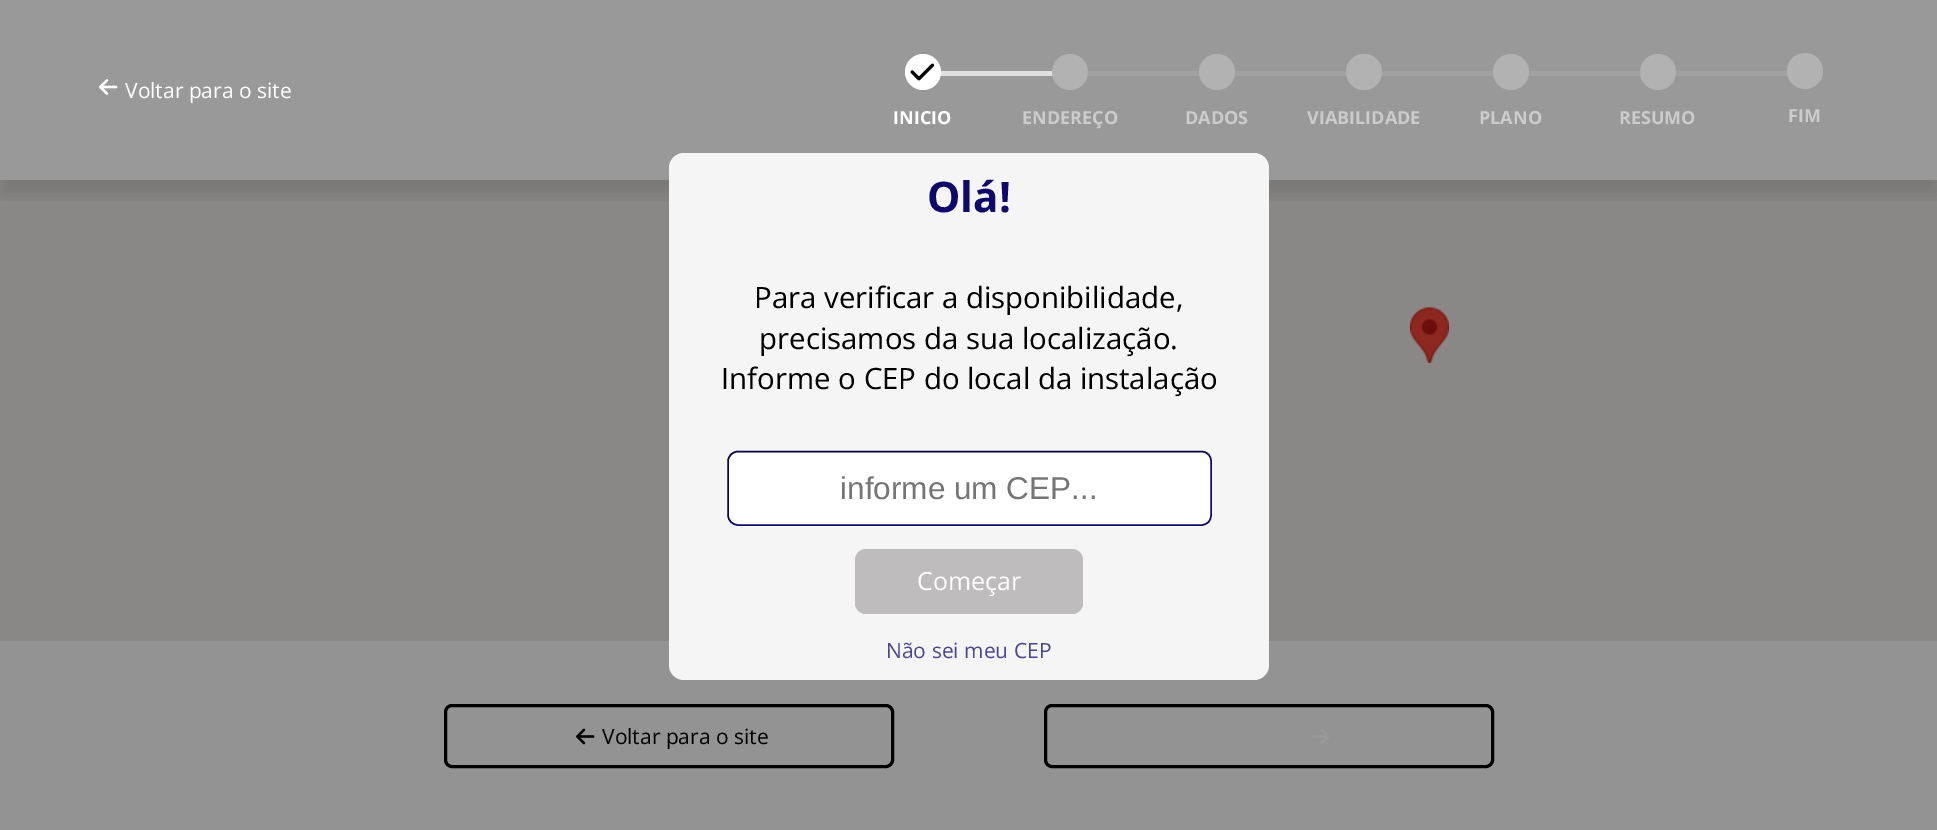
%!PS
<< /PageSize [1937 830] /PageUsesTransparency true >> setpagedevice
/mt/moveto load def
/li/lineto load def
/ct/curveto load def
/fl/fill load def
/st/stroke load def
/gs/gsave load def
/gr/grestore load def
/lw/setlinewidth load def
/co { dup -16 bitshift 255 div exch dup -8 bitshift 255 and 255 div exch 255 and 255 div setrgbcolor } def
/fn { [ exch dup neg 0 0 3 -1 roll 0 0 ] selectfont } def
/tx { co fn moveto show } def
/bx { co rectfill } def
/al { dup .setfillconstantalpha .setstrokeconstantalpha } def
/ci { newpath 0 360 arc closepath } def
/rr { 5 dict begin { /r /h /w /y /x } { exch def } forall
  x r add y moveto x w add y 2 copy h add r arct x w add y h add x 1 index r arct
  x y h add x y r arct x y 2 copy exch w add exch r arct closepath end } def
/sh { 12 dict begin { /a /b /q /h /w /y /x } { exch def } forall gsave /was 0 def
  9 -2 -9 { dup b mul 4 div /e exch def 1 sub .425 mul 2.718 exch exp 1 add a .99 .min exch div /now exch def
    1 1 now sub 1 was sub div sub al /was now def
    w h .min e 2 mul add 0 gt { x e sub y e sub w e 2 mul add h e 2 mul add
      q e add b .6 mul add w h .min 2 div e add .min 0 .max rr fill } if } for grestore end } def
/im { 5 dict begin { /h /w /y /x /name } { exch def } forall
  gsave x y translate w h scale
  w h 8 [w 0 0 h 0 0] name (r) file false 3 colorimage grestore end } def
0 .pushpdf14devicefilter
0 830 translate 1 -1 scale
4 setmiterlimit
0 0 1937 830 16#999999 bx
0 180 1937 461 16#898886 bx
gs
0 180 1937 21 rectclip
16#000000 co
0 15 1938 180 0 7.5 .1 sh
gr
(media/1.raw) 99 79 19 16 im
940 71 113 5 16#E0E0E0 bx
16#FFFFFF co
923 72 18 ci fl
(media/2.raw) 910 63 25 18 im
0.97 al
16#B3B3B3 co
1070 72 18 ci fl
1 al
1088 71 126 5 16#A1A1A1 bx
0.97 al
16#B3B3B3 co
1217 72 18 ci fl
1 al
1235 71 126 5 16#A1A1A1 bx
0.97 al
16#B3B3B3 co
1364 72 18 ci fl
1 al
1382 71 126 5 16#A1A1A1 bx
0.97 al
16#B3B3B3 co
1511 72 18 ci fl
1 al
1529 71 126 5 16#A1A1A1 bx
0.97 al
16#B3B3B3 co
1658 72 18 ci fl
1 al
1676 71 126 5 16#A1A1A1 bx
0.97 al
16#B3B3B3 co
1805 71 18 ci fl
1 al
0 641 1937 189 16#939393 bx
16#F5F5F5 co
669 153 600 527 15 rr fl
16#FFFFFF co
728 452 484 75 11 rr fl
16#0F096A co
1.5 lw
1208.5 454.5 mt 1210 456 1211 458.5 1211 461 ct 1211 515 li 1211 518 1210 520.5 1208.5 522 ct 1206.5 524 1204 525 1201.5 525 ct 738 525 li 735.5 525 733 524 731 522 ct st
16#0A0647 co
731 522 mt 729.5 520.5 728 518 728 515 ct 728 461 li 728 458.5 729.5 456 731 454.5 ct 733 452.5 735.5 451.5 738 451.5 ct 1201.5 451.5 li 1204 451.5 1206.5 452.5 1208.5 454.5 ct st
16#BEBCBC co
855 549 228 65 11 rr fl
(media/3.raw) 1410 307 39 56 im
16#000000 co
3 lw
445.5 705.5 447 61 6.5 rr st
(media/4.raw) 576 728 19 17 im
1045.5 705.5 447 61 6.5 rr st
(media/5.raw) 1311 729 18 15 im
(Voltar para o site) 125 98 /OpenSans-Regular 21 16#FFFFFF tx
(INICIO) 893 124 /OpenSans-Bold 18 16#FFFFFF tx
(ENDEREÇO) 1022 124 /OpenSans-Bold 18 16#CCCCCC tx
(DADOS) 1185 124 /OpenSans-Bold 18 16#CCCCCC tx
(VIABILIDADE) 1307 124 /OpenSans-Bold 18 16#CCCCCC tx
(PLANO) 1479 124 /OpenSans-Bold 18 16#CCCCCC tx
(RESUMO) 1619 124 /OpenSans-Bold 18 16#CCCCCC tx
(FIM) 1788 122 /OpenSans-Bold 18 16#CCCCCC tx
(Olá!) 927 212 /OpenSans-Bold 42 16#0F096A tx
(Para verificar a disponibilidade,) 754 308 /OpenSans-Regular 29.4 16#000000 tx
(precisamos da sua localização.) 759 349 /OpenSans-Regular 29.4 16#000000 tx
(Informe o CEP do local da instalação) 721 389 /OpenSans-Regular 29.4 16#000000 tx
(informe um CEP...) 840 499 /LiberationSans-Regular 31.5 16#757575 tx
(Começar) 917 590 /OpenSans-Regular 25 16#FFFFFF tx
(Não sei meu CEP) 886 658 /OpenSans-Regular 21 16#4B468F tx
(Voltar para o site) 602 744 /OpenSans-Regular 21 16#000000 tx
.poppdf14devicefilter showpage
